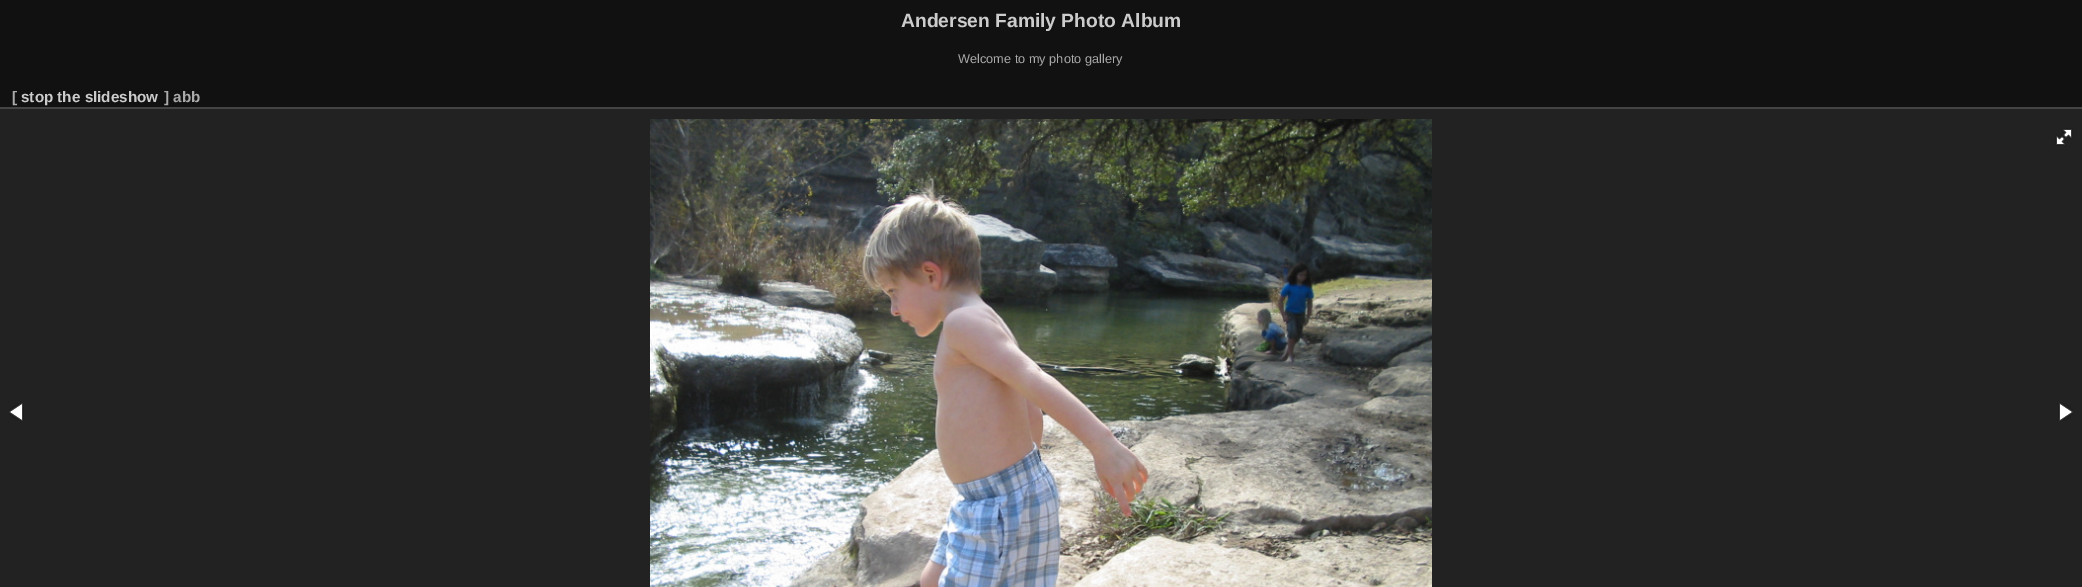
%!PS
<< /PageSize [2082 587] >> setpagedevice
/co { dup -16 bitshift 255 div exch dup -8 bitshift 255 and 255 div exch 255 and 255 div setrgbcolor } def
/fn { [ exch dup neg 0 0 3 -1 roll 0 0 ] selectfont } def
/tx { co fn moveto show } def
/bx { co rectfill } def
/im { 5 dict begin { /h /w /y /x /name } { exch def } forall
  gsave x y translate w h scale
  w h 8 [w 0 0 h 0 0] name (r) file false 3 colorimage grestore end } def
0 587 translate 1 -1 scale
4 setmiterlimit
0 0 2082 587 16#111111 bx
0 107 2082 2 16#444444 bx
0 109 2082 478 16#222222 bx
(media/1.raw) 650 119 782 468 im
(media/2.raw) 2055 128 18 18 im
(media/3.raw) 9 403 15 18 im
(media/4.raw) 2058 403 15 18 im
(Andersen Family Photo Album) 901 27 /LiberationSans-Bold 19.25 16#CCCCCC tx
(Welcome to my photo gallery) 958 63 /LiberationSans-Regular 12.75 16#AAAAAA tx
([) 12 102 /LiberationSans-Bold 15.25 16#AAAAAA tx
(stop the slideshow) 21 102 /LiberationSans-Bold 15.25 16#CCCCCC tx
(] abb) 164 102 /LiberationSans-Bold 15.25 16#AAAAAA tx
showpage
